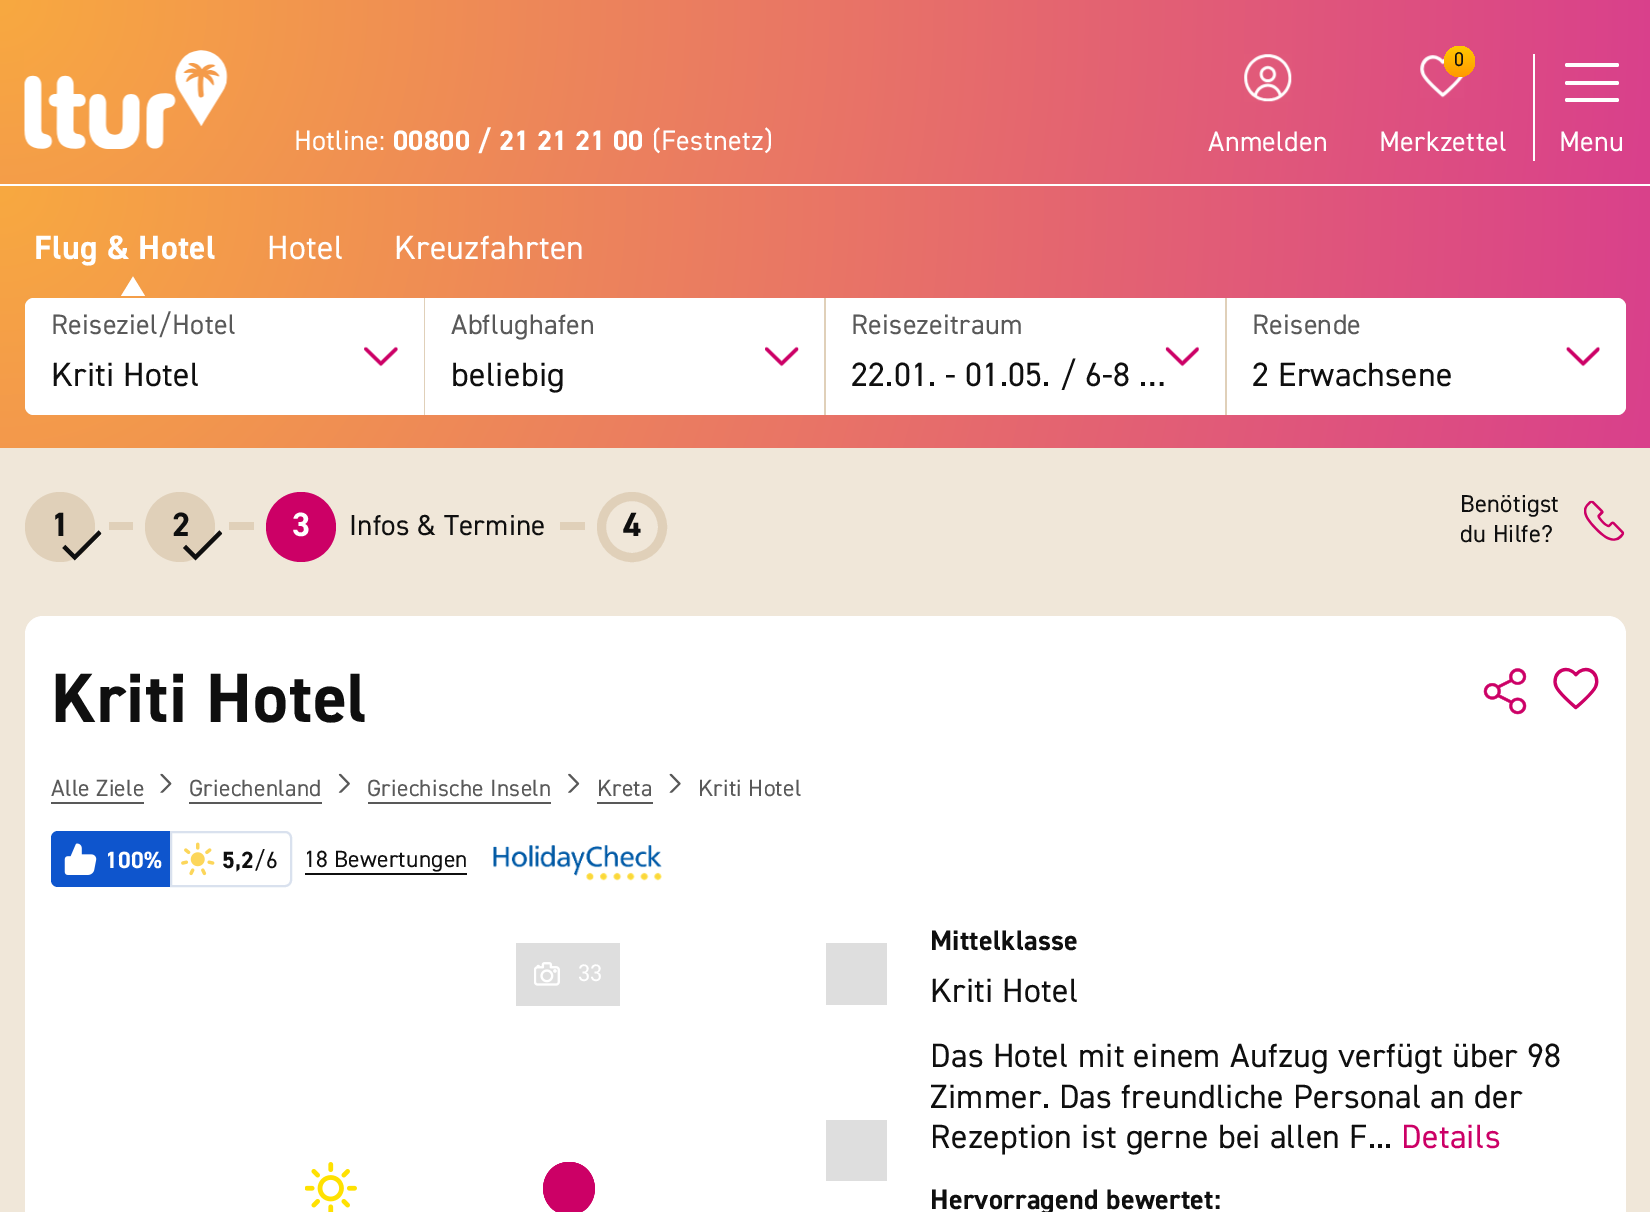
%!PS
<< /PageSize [1650 1212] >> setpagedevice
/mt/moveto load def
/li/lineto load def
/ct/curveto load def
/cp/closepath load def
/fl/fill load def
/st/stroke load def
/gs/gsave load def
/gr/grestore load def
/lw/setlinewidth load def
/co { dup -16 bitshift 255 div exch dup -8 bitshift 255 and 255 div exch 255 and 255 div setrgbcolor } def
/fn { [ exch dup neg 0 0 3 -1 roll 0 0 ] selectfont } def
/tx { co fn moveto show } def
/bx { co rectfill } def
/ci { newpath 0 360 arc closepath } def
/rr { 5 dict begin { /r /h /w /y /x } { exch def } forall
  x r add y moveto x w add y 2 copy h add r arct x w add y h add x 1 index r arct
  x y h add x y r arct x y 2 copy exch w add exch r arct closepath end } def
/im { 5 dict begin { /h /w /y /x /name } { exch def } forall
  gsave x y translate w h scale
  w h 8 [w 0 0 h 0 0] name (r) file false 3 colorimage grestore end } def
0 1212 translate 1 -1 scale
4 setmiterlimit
0 0 1650 1212 16#F0E7D9 bx
gs 0 0 mt 1650 0 li 1650 184 li 0 184 li cp clip newpath 0 0 translate 1660 1660 scale
<< /ShadingType 3 /ColorSpace /DeviceRGB /Coords [0 0 0 0 0 1] /Extend [true true] /Function << /FunctionType 2 /Domain [0 1] /C0 [.973 .663 .251] /C1 [.851 .251 .549] /N 1 >> >> shfill gr
0 184 1650 2 16#FFFFFF bx
(media/1.raw) 24 50 204 99 im
(media/2.raw) 1244 54 48 48 im
(media/3.raw) 1420 55 44 43 im
gs 1459.5 61.5 15.5 ci clip newpath
<< /ShadingType 2 /ColorSpace /DeviceRGB /Coords [1460 46 1460 77] /Extend [true true] /Function << /FunctionType 2 /Domain [0 1] /C0 [1 .788 0] /C1 [1 .6 0] /N 1 >> >> shfill gr
1533 54 2 107 16#FFFFFF bx
1565 63 54 4 2 rr fl
1565 81 54 4 2 rr fl
1565 98 54 4 2 rr fl
gs 0 186 mt 1650 186 li 1650 448 li 0 448 li cp clip newpath 0 186 translate 1671 1671 scale
<< /ShadingType 3 /ColorSpace /DeviceRGB /Coords [0 0 0 0 0 1] /Extend [true true] /Function << /FunctionType 2 /Domain [0 1] /C0 [.973 .663 .251] /C1 [.851 .251 .549] /N 1 >> >> shfill gr
145 296 mt 121 296 li 133 276.5 li cp fl
16#E0D0B9 co
25 298 1601 117 9 rr fl
16#FFFFFF co
34 298 mt 424 298 li 424 415 li 34 415 li 29 415 25 411 25 406 ct 25 307 li 25 302 29 298 34 298 ct cp fl
(media/4.raw) 364 346 34 21 im
425 298 399 117 16#FFFFFF bx
(media/5.raw) 765 346 34 21 im
826 298 399 117 16#FFFFFF bx
(media/6.raw) 1165 346 34 21 im
1227 298 mt 1617 298 li 1622 298 1626 302 1626 307 ct 1626 406 li 1626 411 1622 415 1617 415 ct 1227 415 li cp fl
(media/7.raw) 1566 346 34 21 im
16#E0D0B9 co
60 527 35 ci fl
109 522 24 8 16#E0D0B9 bx
180 527 35 ci fl
229 522 25 8 16#E0D0B9 bx
16#CC0066 co
301 527 35 ci fl
560 522 25 8 16#E0D0B9 bx
9 lw
632 527 30.5 ci st
(media/10.raw) 1584 500 41 41 im
16#FFFFFF co
43 616 mt 1608 616 li 1618 616 1626 624 1626 634 ct 1626 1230 li 25 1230 li 25 634 li 25 624 33 616 43 616 ct cp fl
(media/11.raw) 1483 668 44 47 im
(media/12.raw) 1553 667 46 43 im
51 802 93 2 16#595959 bx
(media/13.raw) 160 773 12 20 im
189 802 133 2 16#595959 bx
(media/14.raw) 338 773 12 20 im
368 802 183 2 16#595959 bx
(media/15.raw) 568 773 12 20 im
597 802 56 2 16#595959 bx
(media/16.raw) 669 773 12 20 im
16#0E55CD co
58 831 mt 170 831 li 170 887 li 58 887 li 54 887 51 884 51 880 ct 51 838 li 51 834 54 831 58 831 ct cp fl
(media/17.raw) 64 843 33 32 im
16#D9E1EE co
2 lw
171 832 mt 285 832 li 288.5 832 291 834.5 291 838 ct 291 880 li 291 883.5 288.5 886 285 886 ct 171 886 li cp st
(media/18.raw) 181 842 34 34 im
305 873 162 2 16#0F0F0F bx
(media/19.raw) 493 845 169 36 im
516 943 104 63 16#DEDEDE bx
(media/20.raw) 534 962 26 24 im
(media/21.raw) 305 1162 52 50 im
16#CC0066 co
569 1162 mt 541 1162 534 1199 557 1212 ct 560 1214 565 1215 569 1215 ct 605 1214 602 1162 569 1162 ct cp fl
569 1162 mt 536 1162 533 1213 569 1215 ct 572 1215 576 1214 579 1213 ct 596 1206 600 1183 587 1170 ct 583 1165 576 1162 569 1162 ct cp fl
569 1162 mt 562 1162 555 1165 551 1170 ct 538 1183 542 1206 559 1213 ct 562 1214 566 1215 569 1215 ct 605 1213 602 1162 569 1162 ct cp fl
(media/22.raw) 543 1162 52 45 im
826 943 61 62 16#DEDEDE bx
826 1120 61 61 16#DEDEDE bx
/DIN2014-Regular 28.1 fn
16#FFFFFF co
294 150 mt .25 0 (Hotline:) ashow
/DIN2014-Bold 28.1 fn
393 150 mt .25 0 (00800 / 21 21 21 00) ashow
/DIN2014-Regular 28.1 fn
652 150 mt .25 0 (\(Festnetz\)) ashow
1208 151 mt .25 0 (Anmelden) ashow
(0) 1454 66 /DIN2014-Regular 20 16#0F0F0F tx
/DIN2014-Regular 28.1 fn
16#FFFFFF co
1379 151 mt .25 0 (Merkzettel) ashow
1559 151 mt .25 0 (Menu) ashow
/DIN2014-Bold 33.75 fn
34 259 mt .35 0 (Flug & Hotel) ashow
/DIN2014-Regular 33.75 fn
267 259 mt .35 0 (Hotel) ashow
394 259 mt .35 0 (Kreuzfahrten) ashow
/DIN2014-Regular 28.1 fn
16#595959 co
51 334 mt .25 0 (Reiseziel/Hotel) ashow
/DIN2014-Regular 33.75 fn
16#0F0F0F co
51 386 mt .35 0 (Kriti Hotel) ashow
/DIN2014-Regular 28.1 fn
16#595959 co
451 334 mt .25 0 (Abflughafen) ashow
/DIN2014-Regular 33.75 fn
16#0F0F0F co
451 386 mt .35 0 (beliebig) ashow
/DIN2014-Regular 28.1 fn
16#595959 co
851 334 mt .25 0 (Reisezeitraum) ashow
/DIN2014-Regular 33.75 fn
16#0F0F0F co
851 386 mt .35 0 (22.01. - 01.05. / 6-8 …) ashow
/DIN2014-Regular 28.1 fn
16#595959 co
1252 334 mt .25 0 (Reisende) ashow
/DIN2014-Regular 33.75 fn
16#0F0F0F co
1252 386 mt .35 0 (2 Erwachsene) ashow
/DIN2014-Bold 33.75 fn
51 536 mt .35 0 (1) ashow
(media/8.raw) 62 530 40 31 im
172 536 mt .35 0 (2) ashow
(media/9.raw) 183 530 40 31 im
16#FFFFFF co
292 536 mt .35 0 (3) ashow
/DIN2014-Regular 29 fn
16#0F0F0F co
349 535 mt .25 0 (Infos & Termine) ashow
/DIN2014-Bold 33.75 fn
623 536 mt .35 0 (4) ashow
/DIN2014-Regular 24.5 fn
1460 512 mt .25 0 (Benötigst) ashow
1460 542 mt .25 0 (du Hilfe?) ashow
/DIN2014-Bold 70 fn
51 722 mt .75 0 (Kriti Hotel) ashow
/DIN2014-Regular 23.5 fn
16#595959 co
51 796 mt .25 0 (Alle Ziele) ashow
189 796 mt .25 0 (Griechenland) ashow
367 796 mt .25 0 (Griechische Inseln) ashow
597 796 mt .25 0 (Kreta) ashow
698 796 mt .25 0 (Kriti Hotel) ashow
/DIN2014-Bold 23.5 fn
16#FFFFFF co
105 868 mt .25 0 (100%) ashow
16#0F0F0F co
222 868 mt .25 0 (5,2) ashow
/DIN2014-Regular 23.5 fn
254 868 mt .25 0 (/6) ashow
304 867 mt .25 0 (18 Bewertungen) ashow
/DIN2014-Regular 24 fn
16#FFFFFF co
578 981 mt .35 0 (33) ashow
/DIN2014-Bold 28.1 fn
16#0F0F0F co
930 950 mt .25 0 (Mittelklasse) ashow
/DIN2014-Regular 33.75 fn
930 1002 mt .35 0 (Kriti Hotel) ashow
930 1067 mt .35 0 (Das Hotel mit einem Aufzug verfügt über 98) ashow
930 1108 mt .35 0 (Zimmer. Das freundliche Personal an der) ashow
930 1148 mt .35 0 (Rezeption ist gerne bei allen F...) ashow
16#CC0066 co
1401 1148 mt .35 0 (Details) ashow
/DIN2014-Bold 28.1 fn
16#0F0F0F co
930 1209 mt .25 0 (Hervorragend bewertet:) ashow
showpage
